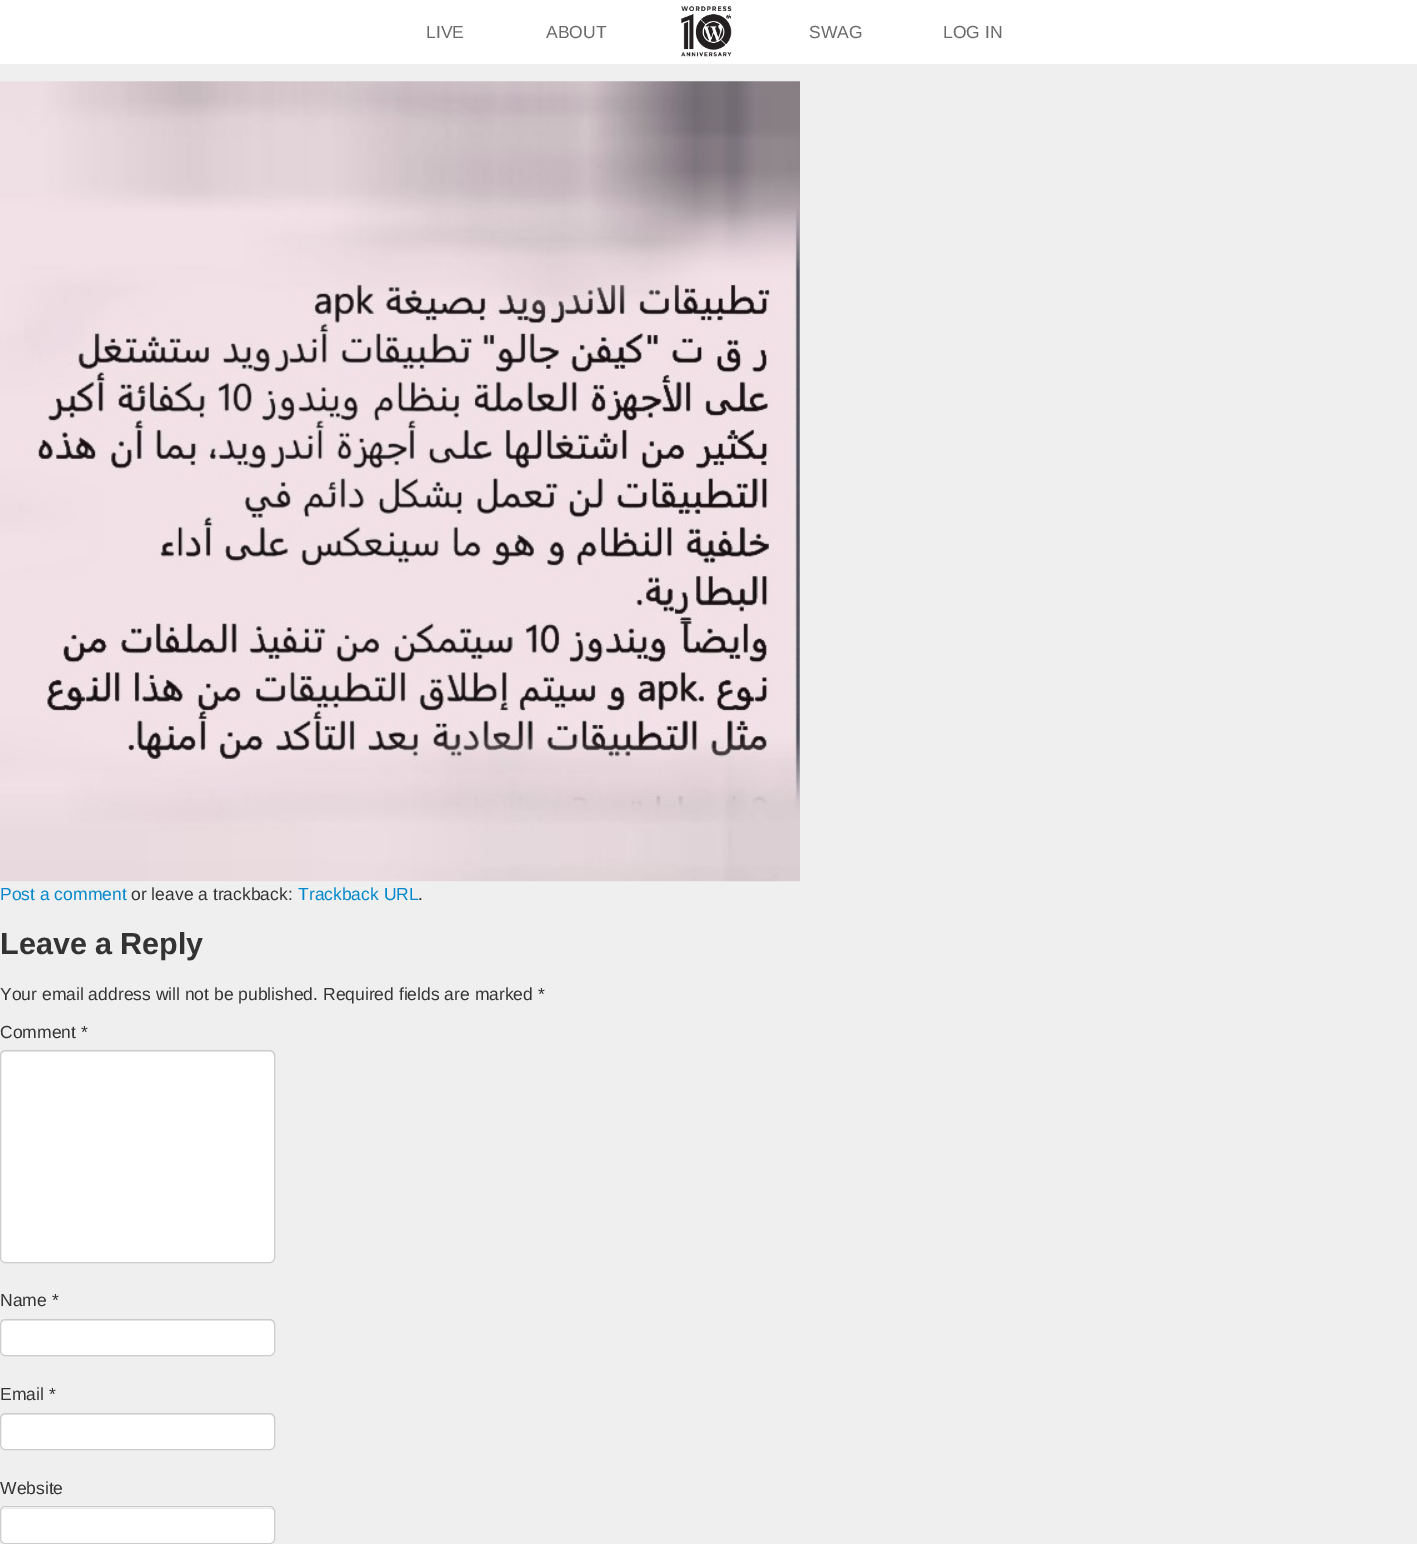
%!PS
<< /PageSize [1417 1544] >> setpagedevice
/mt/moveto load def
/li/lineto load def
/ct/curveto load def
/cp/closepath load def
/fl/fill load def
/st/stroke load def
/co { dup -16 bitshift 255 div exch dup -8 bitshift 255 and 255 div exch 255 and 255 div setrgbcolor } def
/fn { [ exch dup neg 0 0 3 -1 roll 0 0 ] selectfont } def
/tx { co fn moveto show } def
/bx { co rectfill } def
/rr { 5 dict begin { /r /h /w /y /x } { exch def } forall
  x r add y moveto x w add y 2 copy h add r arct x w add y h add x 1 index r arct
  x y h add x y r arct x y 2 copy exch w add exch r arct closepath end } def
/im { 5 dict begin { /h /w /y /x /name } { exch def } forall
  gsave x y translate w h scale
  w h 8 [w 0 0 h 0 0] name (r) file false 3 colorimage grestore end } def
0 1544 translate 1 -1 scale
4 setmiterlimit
0 0 1417 1544 16#EFEFEF bx
0 0 1417 64 16#FFFFFF bx
(media/1.raw) 681 6 51 51 im
(media/2.raw) 0 81 800 801 im
0 1050 275 213 5 rr fl
16#ECECEC co
5 1052 mt 270 1052 li 272 1052 274 1054 274 1056 ct 274 1053 273 1051 270 1051 ct 5 1051 li 2 1051 1 1053 1 1056 ct 1 1054 3 1052 5 1052 ct cp fl
16#CCCCCC co
.5 1050.5 274 212 4.5 rr st
16#FFFFFF co
0 1319 275 37 5 rr fl
16#ECECEC co
5 1321 mt 270 1321 li 272 1321 274 1323 274 1325 ct 274 1322 273 1320 270 1320 ct 5 1320 li 2 1320 1 1322 1 1325 ct 1 1323 3 1321 5 1321 ct cp fl
16#CCCCCC co
.5 1319.5 274 36 4.5 rr st
16#FFFFFF co
0 1413 275 37 5 rr fl
16#ECECEC co
5 1415 mt 270 1415 li 272 1415 274 1417 274 1419 ct 274 1416 273 1414 270 1414 ct 5 1414 li 2 1414 1 1416 1 1419 ct 1 1417 3 1415 5 1415 ct cp fl
16#CCCCCC co
.5 1413.5 274 36 4.5 rr st
16#FFFFFF co
0 1506 275 38 5 rr fl
16#ECECEC co
5 1509 mt 271 1509 li 274 1511 li 274 1512 li 274 1510 272 1508 270 1508 ct 5 1508 li 3 1508 1 1510 1 1512 ct 1 1510 3 1509 5 1509 ct cp fl
16#CCCCCC co
.5 1506.5 274 37 4.5 rr st
(LIVE) 426 38 /LiberationSans-Regular 17.5 16#6A6A6A tx
(ABOUT) 546 38 /LiberationSans-Regular 17.5 16#6A6A6A tx
(SWAG) 809 38 /LiberationSans-Regular 17.5 16#6A6A6A tx
(LOG IN) 943 38 /LiberationSans-Regular 17.5 16#6A6A6A tx
(Post a comment) 0 900 /LiberationSans-Regular 17.5 16#0088CC tx
(or leave a trackback:) 131 900 /LiberationSans-Regular 17.5 16#333333 tx
(Trackback URL) 298 900 /LiberationSans-Regular 17.5 16#0088CC tx
(.) 418 900 /LiberationSans-Regular 17.5 16#333333 tx
(Leave a Reply) 0 954 /LiberationSans-Bold 30.5 16#333333 tx
(Your email address will not be published. Required fields are marked *) 0 1000 /LiberationSans-Regular 17.5 16#333333 tx
(Comment *) 0 1038 /LiberationSans-Regular 17.5 16#333333 tx
(Name *) 0 1306 /LiberationSans-Regular 17.5 16#333333 tx
(Email *) 0 1400 /LiberationSans-Regular 17.5 16#333333 tx
(Website) 0 1494 /LiberationSans-Regular 17.5 16#333333 tx
showpage
